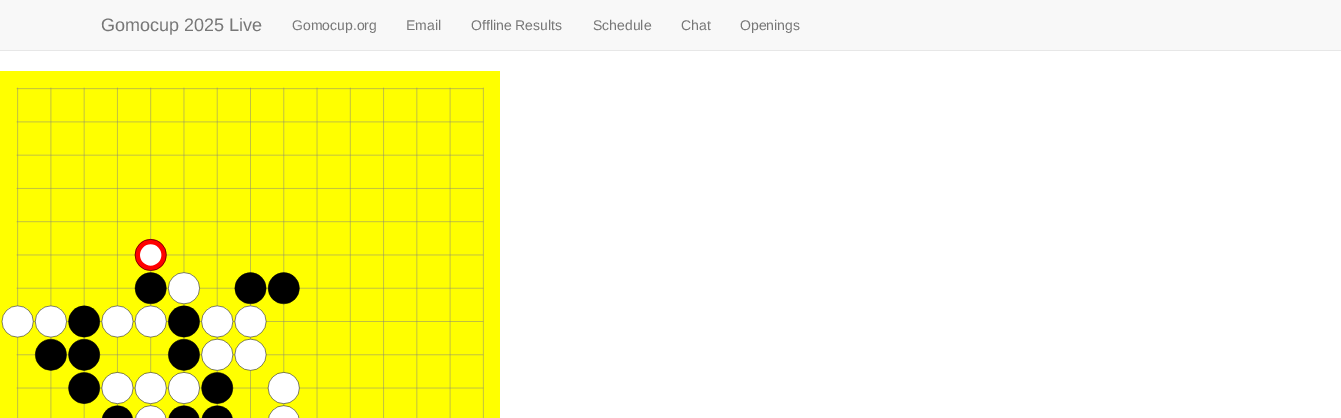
%!PS
<< /PageSize [1341 418] >> setpagedevice
/co { dup -16 bitshift 255 div exch dup -8 bitshift 255 and 255 div exch 255 and 255 div setrgbcolor } def
/fn { [ exch dup neg 0 0 3 -1 roll 0 0 ] selectfont } def
/tx { co fn moveto show } def
/bx { co rectfill } def
/im { 5 dict begin { /h /w /y /x /name } { exch def } forall
  gsave x y translate w h scale
  w h 8 [w 0 0 h 0 0] name (r) file false 3 colorimage grestore end } def
0 418 translate 1 -1 scale
4 setmiterlimit
0 0 1341 418 16#FFFFFF bx
0 0 1341 50 16#F8F8F8 bx
0 50 1341 1 16#E7E7E7 bx
(media/1.raw) 0 71 500 347 im
(Gomocup 2025 Live) 101 31 /LiberationSans-Regular 18 16#777777 tx
(Gomocup.org) 292 30 /LiberationSans-Regular 14 16#777777 tx
(Email) 406 30 /LiberationSans-Regular 14 16#777777 tx
(Offline Results) 471 30 /LiberationSans-Regular 14 16#777777 tx
(Schedule) 593 30 /LiberationSans-Regular 14 16#777777 tx
(Chat) 681 30 /LiberationSans-Regular 14 16#777777 tx
(Openings) 740 30 /LiberationSans-Regular 14 16#777777 tx
showpage
